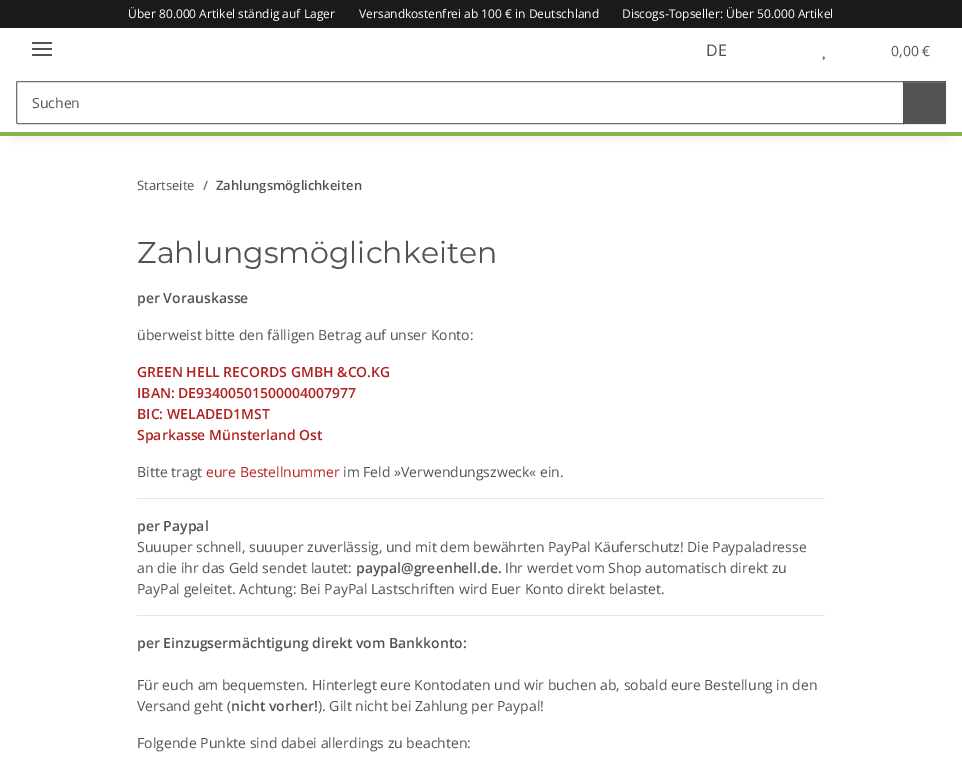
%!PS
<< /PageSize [962 771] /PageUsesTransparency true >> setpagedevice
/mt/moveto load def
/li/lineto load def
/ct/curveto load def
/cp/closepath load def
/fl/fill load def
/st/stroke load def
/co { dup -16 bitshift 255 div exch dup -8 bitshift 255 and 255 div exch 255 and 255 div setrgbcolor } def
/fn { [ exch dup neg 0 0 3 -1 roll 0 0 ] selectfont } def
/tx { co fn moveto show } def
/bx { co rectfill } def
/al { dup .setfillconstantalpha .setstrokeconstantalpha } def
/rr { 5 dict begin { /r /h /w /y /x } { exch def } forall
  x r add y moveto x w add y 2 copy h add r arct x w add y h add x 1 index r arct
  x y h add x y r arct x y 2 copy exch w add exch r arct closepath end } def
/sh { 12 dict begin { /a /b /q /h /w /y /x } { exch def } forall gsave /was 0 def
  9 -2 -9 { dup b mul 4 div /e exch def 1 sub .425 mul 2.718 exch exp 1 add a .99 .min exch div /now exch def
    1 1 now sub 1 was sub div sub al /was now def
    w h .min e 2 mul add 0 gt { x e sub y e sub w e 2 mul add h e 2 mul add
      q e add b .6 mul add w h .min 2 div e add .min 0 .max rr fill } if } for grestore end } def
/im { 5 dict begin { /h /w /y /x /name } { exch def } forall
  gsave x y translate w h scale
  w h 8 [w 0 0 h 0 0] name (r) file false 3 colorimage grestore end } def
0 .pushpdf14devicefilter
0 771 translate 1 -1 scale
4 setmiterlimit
0 0 962 771 16#1A1A1A bx
0 136 962 635 16#FFFFFF bx
16#000000 co
12 56 938 84 0 4.5 .06 sh
0 28 962 104 16#FFFFFF bx
0 132 962 4 16#88B04B bx
16#525252 co
32 48 20 2 1 rr fl
32 42 20 2 1 rr fl
32 54 20 2 1 rr fl
(media/1.raw) 822 56 3 4 im
16#707070 co
18 81.5 mt 903.5 81.5 li 903.5 123.5 li 18 123.5 li 17 123.5 16.5 123 16.5 122 ct 16.5 83 li 16.5 82 17 81.5 18 81.5 ct cp st
16#000000 co
903 82 43 43 0 .5 .07 sh
903 81 43 43 16#525252 bx
904 82 41 1 16#6C6C6C bx
137 498 688 1 16#E6E6E6 bx
137 615 688 1 16#E6E6E6 bx
(Über 80.000 Artikel ständig auf Lager) 128 18 /OpenSans-Regular 12 16#FFFFFF tx
(Versandkostenfrei ab 100 € in Deutschland) 359 18 /OpenSans-Regular 12 16#FFFFFF tx
(Discogs-Topseller: Über 50.000 Artikel) 622 18 /OpenSans-Regular 12 16#FFFFFF tx
(DE) 706 56 /OpenSans-Regular 16 16#525252 tx
(0,00 €) 891 56 /OpenSans-Regular 14 16#525252 tx
(Suchen) 32 108 /OpenSans-Regular 14 16#525252 tx
(Startseite) 137 190 /OpenSans-Regular 13 16#525252 tx
(/) 203 190 /OpenSans-SemiBold 13 16#707070 tx
(Zahlungsmöglichkeiten) 216 190 /OpenSans-SemiBold 13 16#525252 tx
(Zahlungsmöglichkeiten) 137 263 /Montserrat-Regular 30 16#525252 tx
(per Vorauskasse) 137 303 /OpenSans-SemiBold 14 16#525252 tx
(überweist bitte den fälligen Betrag auf unser Konto:) 137 340 /OpenSans-Regular 14 16#525252 tx
(GREEN HELL RECORDS GMBH &CO.KG) 137 377 /OpenSans-SemiBold 14 16#B22222 tx
(IBAN: DE93400501500004007977) 137 398 /OpenSans-SemiBold 14 16#B22222 tx
(BIC: WELADED1MST) 137 419 /OpenSans-SemiBold 14 16#B22222 tx
(Sparkasse Münsterland Ost) 137 440 /OpenSans-SemiBold 14 16#B22222 tx
(Bitte tragt) 137 477 /OpenSans-Regular 14 16#525252 tx
(eure Bestellnummer) 206 477 /OpenSans-Regular 14 16#B22222 tx
(im Feld »Verwendungszweck« ein.) 343 477 /OpenSans-Regular 14 16#525252 tx
(per Paypal) 137 531 /OpenSans-SemiBold 14 16#525252 tx
(Suuuper schnell, suuuper zuverlässig, und mit dem bewährten PayPal Käuferschutz! Die Paypaladresse) 137 552 /OpenSans-Regular 14 16#525252 tx
(an die ihr das Geld sendet lautet:) 137 573 /OpenSans-Regular 14 16#525252 tx
(paypal@greenhell.de.) 356 573 /OpenSans-SemiBold 14 16#525252 tx
(Ihr werdet vom Shop automatisch direkt zu) 505 573 /OpenSans-Regular 14 16#525252 tx
(PayPal geleitet. Achtung: Bei PayPal Lastschriften wird Euer Konto direkt belastet.) 137 594 /OpenSans-Regular 14 16#525252 tx
(per Einzugsermächtigung direkt vom Bankkonto:) 137 648 /OpenSans-SemiBold 14 16#525252 tx
(Für euch am bequemsten. Hinterlegt eure Kontodaten und wir buchen ab, sobald eure Bestellung in den) 137 690 /OpenSans-Regular 14 16#525252 tx
(Versand geht \() 137 711 /OpenSans-Regular 14 16#525252 tx
(nicht vorher!) 231 711 /OpenSans-SemiBold 14 16#525252 tx
(\). Gilt nicht bei Zahlung per Paypal!) 318 711 /OpenSans-Regular 14 16#525252 tx
(Folgende Punkte sind dabei allerdings zu beachten:) 137 748 /OpenSans-Regular 14 16#525252 tx
.poppdf14devicefilter showpage
